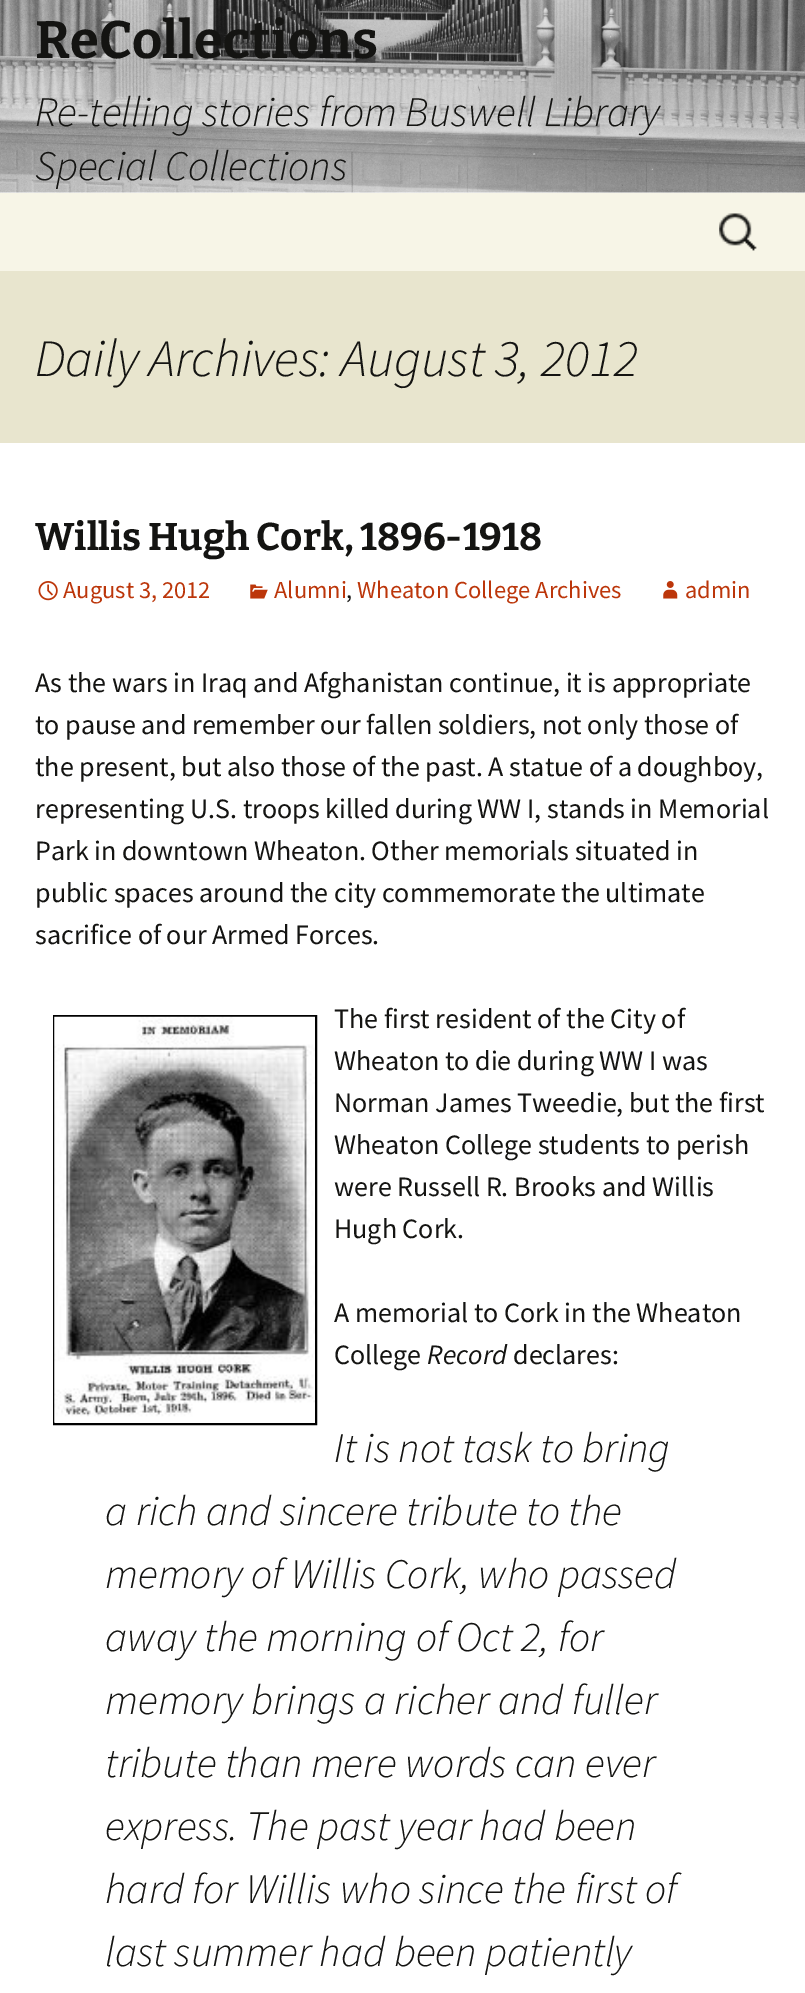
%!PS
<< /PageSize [805 1993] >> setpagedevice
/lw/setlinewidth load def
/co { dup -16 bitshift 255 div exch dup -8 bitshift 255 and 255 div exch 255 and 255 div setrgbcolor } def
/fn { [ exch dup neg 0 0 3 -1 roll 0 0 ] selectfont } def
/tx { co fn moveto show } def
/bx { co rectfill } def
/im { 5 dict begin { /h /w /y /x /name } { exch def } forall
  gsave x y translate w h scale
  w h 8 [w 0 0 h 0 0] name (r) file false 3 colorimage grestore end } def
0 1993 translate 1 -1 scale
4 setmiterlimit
0 0 805 1993 16#FFFFFF bx
(media/1.raw) 0 0 805 193 im
0 193 805 78 16#F7F5E7 bx
(media/2.raw) 719 213 38 38 im
0 271 805 172 16#E8E5CE bx
(media/3.raw) 38 581 20 20 im
(media/4.raw) 250 584 18 15 im
(media/5.raw) 663 581 15 18 im
16#000000 co
2 lw
54 1016 262 408 rectstroke
(media/6.raw) 54 1016 261 407 im
(ReCollections) 35 58 /Bitter-Thin 52.5 16#141412 tx
(Re-telling stories from Buswell Library) 35 126 /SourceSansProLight-LightItalic 42 16#141412 tx
(Special Collections) 35 180 /SourceSansProLight-LightItalic 42 16#141412 tx
(Daily Archives: August 3, 2012) 35 376 /SourceSansProLight-LightItalic 52.5 16#141412 tx
(Willis Hugh Cork, 1896-1918) 35 550 /Bitter-Thin 38.5 16#141412 tx
(August 3, 2012) 63 598 /SourceSansPro-Regular 24.5 16#BC360A tx
(Alumni) 274 598 /SourceSansPro-Regular 24.5 16#BC360A tx
(,) 346 598 /SourceSansPro-Regular 24.5 16#141412 tx
(Wheaton College Archives) 357 598 /SourceSansPro-Regular 24.5 16#BC360A tx
(admin) 685 598 /SourceSansPro-Regular 24.5 16#BC360A tx
(As the wars in Iraq and Afghanistan continue, it is appropriate) 35 692 /SourceSansPro-Regular 28 16#141412 tx
(to pause and remember our fallen soldiers, not only those of) 35 734 /SourceSansPro-Regular 28 16#141412 tx
(the present, but also those of the past. A statue of a doughboy,) 35 776 /SourceSansPro-Regular 28 16#141412 tx
(representing U.S. troops killed during WW I, stands in Memorial) 35 818 /SourceSansPro-Regular 28 16#141412 tx
(Park in downtown Wheaton. Other memorials situated in) 35 860 /SourceSansPro-Regular 28 16#141412 tx
(public spaces around the city commemorate the ultimate) 35 902 /SourceSansPro-Regular 28 16#141412 tx
(sacrifice of our Armed Forces.) 35 944 /SourceSansPro-Regular 28 16#141412 tx
(The first resident of the City of) 334 1028 /SourceSansPro-Regular 28 16#141412 tx
(Wheaton to die during WW I was) 334 1070 /SourceSansPro-Regular 28 16#141412 tx
(Norman James Tweedie, but the first) 334 1112 /SourceSansPro-Regular 28 16#141412 tx
(Wheaton College students to perish) 334 1154 /SourceSansPro-Regular 28 16#141412 tx
(were Russell R. Brooks and Willis) 334 1196 /SourceSansPro-Regular 28 16#141412 tx
(Hugh Cork.) 334 1238 /SourceSansPro-Regular 28 16#141412 tx
(A memorial to Cork in the Wheaton) 334 1322 /SourceSansPro-Regular 28 16#141412 tx
(College) 334 1364 /SourceSansPro-Regular 28 16#141412 tx
(Record) 427 1364 /SourceSansPro-Italic 28 16#141412 tx
(declares:) 513 1364 /SourceSansPro-Regular 28 16#141412 tx
(It is not task to bring) 334 1462 /SourceSansProLight-LightItalic 42 16#141412 tx
(a rich and sincere tribute to the) 105 1525 /SourceSansProLight-LightItalic 42 16#141412 tx
(memory of Willis Cork, who passed) 105 1588 /SourceSansProLight-LightItalic 42 16#141412 tx
(away the morning of Oct 2, for) 105 1651 /SourceSansProLight-LightItalic 42 16#141412 tx
(memory brings a richer and fuller) 105 1714 /SourceSansProLight-LightItalic 42 16#141412 tx
(tribute than mere words can ever) 105 1777 /SourceSansProLight-LightItalic 42 16#141412 tx
(express. The past year had been) 105 1840 /SourceSansProLight-LightItalic 42 16#141412 tx
(hard for Willis who since the first of) 105 1903 /SourceSansProLight-LightItalic 42 16#141412 tx
(last summer had been patiently) 105 1966 /SourceSansProLight-LightItalic 42 16#141412 tx
showpage
